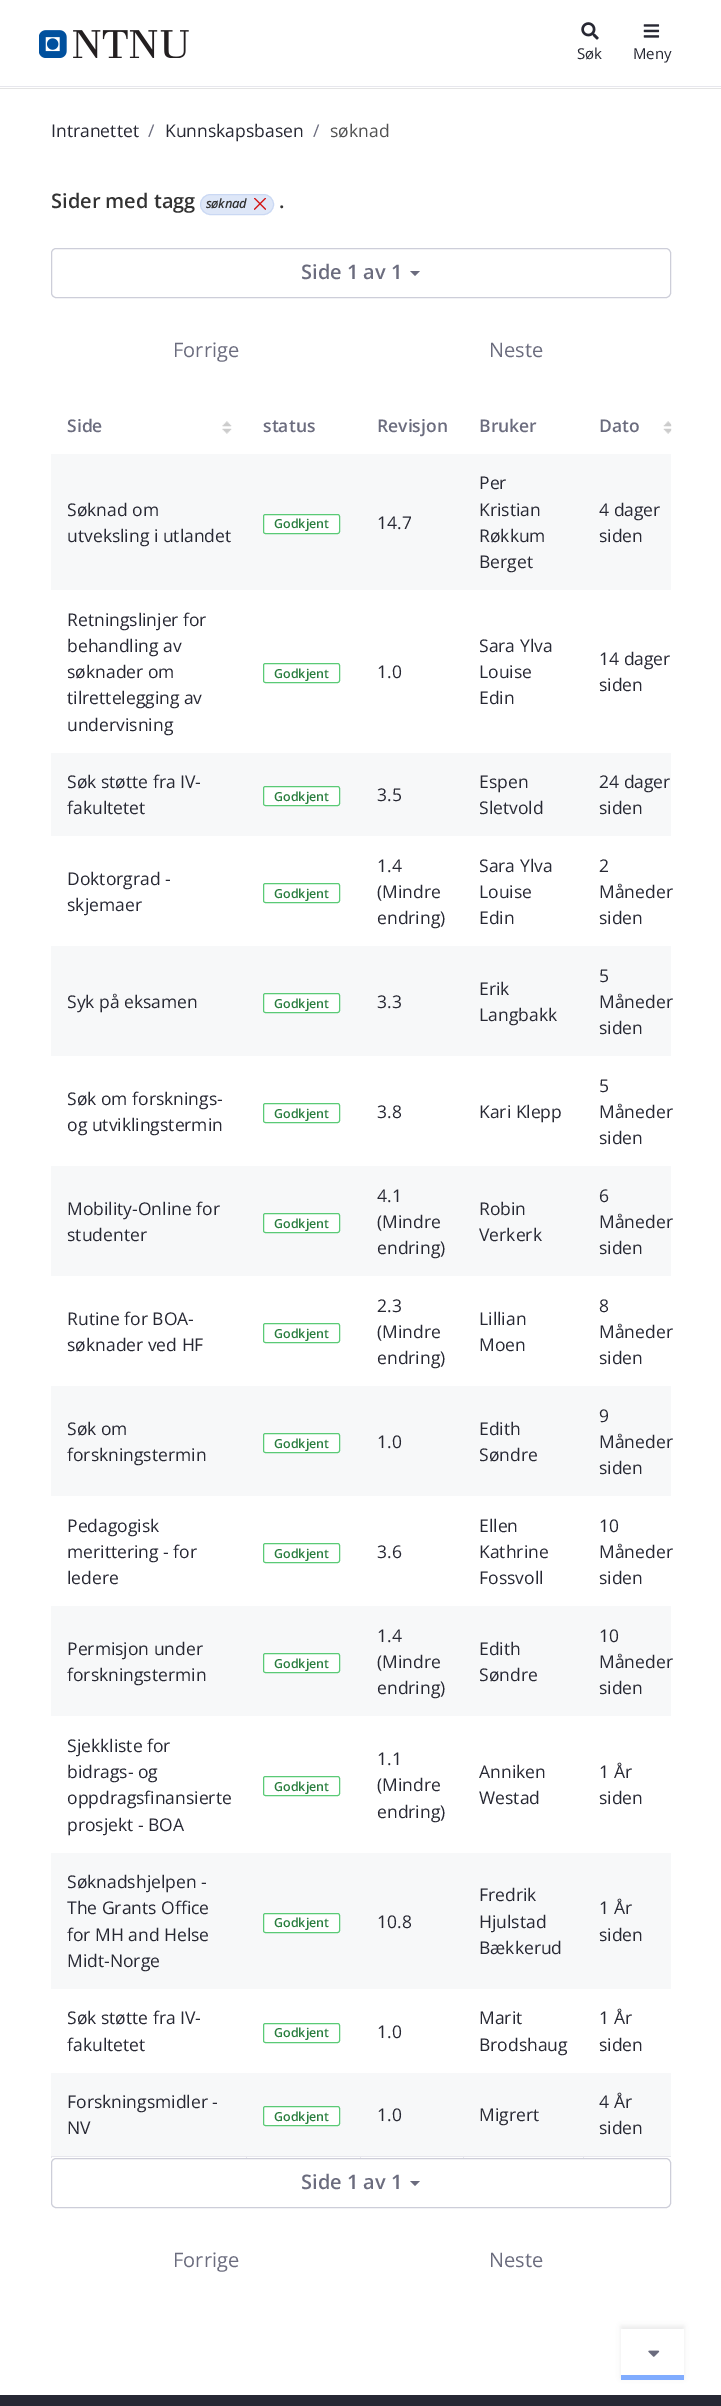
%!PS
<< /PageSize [721 2406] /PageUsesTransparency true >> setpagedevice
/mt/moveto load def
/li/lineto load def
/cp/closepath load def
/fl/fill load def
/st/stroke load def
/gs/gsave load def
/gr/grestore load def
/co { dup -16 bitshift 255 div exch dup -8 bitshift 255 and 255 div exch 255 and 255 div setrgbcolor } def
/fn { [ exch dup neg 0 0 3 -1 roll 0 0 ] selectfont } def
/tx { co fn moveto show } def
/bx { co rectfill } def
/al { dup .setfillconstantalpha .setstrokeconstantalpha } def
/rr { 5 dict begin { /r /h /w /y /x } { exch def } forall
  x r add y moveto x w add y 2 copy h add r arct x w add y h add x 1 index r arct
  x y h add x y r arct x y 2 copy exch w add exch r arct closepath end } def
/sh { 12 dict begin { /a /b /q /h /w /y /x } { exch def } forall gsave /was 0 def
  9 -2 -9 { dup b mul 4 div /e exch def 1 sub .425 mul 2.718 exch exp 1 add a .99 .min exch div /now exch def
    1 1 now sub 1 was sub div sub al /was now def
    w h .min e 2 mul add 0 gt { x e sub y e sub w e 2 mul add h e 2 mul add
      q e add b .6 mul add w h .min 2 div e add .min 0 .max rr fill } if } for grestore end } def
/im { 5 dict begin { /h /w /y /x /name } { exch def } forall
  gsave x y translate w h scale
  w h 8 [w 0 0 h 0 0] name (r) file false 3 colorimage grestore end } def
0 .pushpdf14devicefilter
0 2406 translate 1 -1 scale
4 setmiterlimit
0 0 721 2406 16#FFFFFF bx
0 88 721 1 16#E4E4E4 bx
0 86 721 1 16#E7E7ED bx
(media/1.raw) 39 30 150 28 im
(media/2.raw) 581 22 18 18 im
(media/3.raw) 643 24 17 14 im
16#DEE7F8 co
200.5 194.5 73 20 10 rr gs fl gr
16#CAD8F3 co
st
(media/4.raw) 254 198 12 12 im
16#CDCED9 co
51.5 248.5 619 49 4.5 rr st
16#6B6C7E co
410 271 mt 420 271 li 415 276 li cp fl
51 2156 620 1 16#E7E7ED bx
51 2156 1 2 16#E7E7ED bx
(media/5.raw) 222 421 10 13 im
(media/6.raw) 663 421 9 13 im
51 454 620 136 16#F7F8F9 bx
16#FFFFFF co
263.5 514.5 76 19 2 rr gs fl gr
16#5ACA76 co
st
263.5 663.5 76 19 2 rr st
51 753 620 83 16#F7F8F9 bx
16#FFFFFF co
263.5 786.5 76 19 2 rr gs fl gr
16#5ACA76 co
st
263.5 883.5 76 19 2 rr st
51 946 620 110 16#F7F8F9 bx
16#FFFFFF co
263.5 993.5 76 19 2 rr gs fl gr
16#5ACA76 co
st
263.5 1103.5 76 19 2 rr st
51 1166 620 110 16#F7F8F9 bx
16#FFFFFF co
263.5 1213.5 76 19 2 rr gs fl gr
16#5ACA76 co
st
263.5 1323.5 76 19 2 rr st
51 1386 620 110 16#F7F8F9 bx
16#FFFFFF co
263.5 1433.5 76 19 2 rr gs fl gr
16#5ACA76 co
st
263.5 1543.5 76 19 2 rr st
51 1606 620 110 16#F7F8F9 bx
16#FFFFFF co
263.5 1653.5 76 19 2 rr gs fl gr
16#5ACA76 co
st
263.5 1776.5 76 19 2 rr st
51 1853 620 136 16#F7F8F9 bx
16#FFFFFF co
263.5 1913.5 76 19 2 rr gs fl gr
16#5ACA76 co
st
263.5 2023.5 76 19 2 rr st
51 2073 620 83 16#F7F8F9 bx
246 2156 1 2 16#E7E7ED bx
16#FFFFFF co
263.5 2106.5 76 19 2 rr gs fl gr
16#5ACA76 co
st
360 2156 1 2 16#E7E7ED bx
463 2156 1 2 16#E7E7ED bx
583 2156 1 2 16#E7E7ED bx
16#CDCED9 co
51.5 2158.5 619 49 4.5 rr st
16#6B6C7E co
410 2181 mt 420 2181 li 415 2186 li cp fl
16#000000 co
621 2326 63 52 0 2.5 .07 sh
621 2329 63 46 16#FFFFFF bx
(media/7.raw) 648 2350 12 7 im
621 2375 63 5 16#80ACFF bx
0 2395 721 11 16#272834 bx
(Søk) 577 59 /OpenSans-Regular 15 16#272833 tx
(Meny) 633 59 /OpenSans-Regular 15 16#272833 tx
(Intranettet) 51 137 /OpenSans-Regular 17.5 16#272833 tx
(/) 148 137 /OpenSans-Regular 17.5 16#6B6C7E tx
(Kunnskapsbasen) 165 137 /OpenSans-Regular 17.5 16#272833 tx
(/) 313 137 /OpenSans-Regular 17.5 16#6B6C7E tx
(søknad) 330 137 /OpenSans-Regular 17.5 16#525252 tx
(Sider med tagg) 51 208 /OpenSans-SemiBold 20 16#333333 tx
(søknad) 206 208 /OpenSans-BoldItalic 12.5 16#333333 tx
(.) 279 208 /OpenSans-SemiBold 20 16#333333 tx
(Side 1 av 1) 301 279 /OpenSans-SemiBold 20 16#6B6C7E tx
(Forrige) 173 357 /OpenSans-Regular 20 16#6B6C7E tx
(Neste) 489 357 /OpenSans-Regular 20 16#6B6C7E tx
(Side) 67 432 /OpenSans-SemiBold 17.5 16#6B6C7E tx
(status) 263 432 /OpenSans-SemiBold 17.5 16#6B6C7E tx
(Revisjon) 377 432 /OpenSans-SemiBold 17.5 16#6B6C7E tx
(Bruker) 479 432 /OpenSans-SemiBold 17.5 16#6B6C7E tx
(Dato) 599 432 /OpenSans-SemiBold 17.5 16#6B6C7E tx
(Søknad om) 67 516 /OpenSans-Regular 17.5 16#272833 tx
(utveksling i utlandet) 67 542 /OpenSans-Regular 17.5 16#272833 tx
(Godkjent) 274 528 /OpenSans-SemiBold 12.5 16#287D3D tx
(14.7) 377 529 /OpenSans-Regular 17.5 16#272833 tx
(Per) 479 489 /OpenSans-Regular 17.5 16#272833 tx
(Kristian) 479 516 /OpenSans-Regular 17.5 16#272833 tx
(Røkkum) 479 542 /OpenSans-Regular 17.5 16#272833 tx
(Berget) 479 568 /OpenSans-Regular 17.5 16#272833 tx
(4 dager) 599 516 /OpenSans-Regular 17.5 16#272833 tx
(siden) 599 542 /OpenSans-Regular 17.5 16#272833 tx
(Retningslinjer for) 67 626 /OpenSans-Regular 17.5 16#272833 tx
(behandling av) 67 652 /OpenSans-Regular 17.5 16#272833 tx
(søknader om) 67 678 /OpenSans-Regular 17.5 16#272833 tx
(tilrettelegging av) 67 704 /OpenSans-Regular 17.5 16#272833 tx
(undervisning) 67 731 /OpenSans-Regular 17.5 16#272833 tx
(Godkjent) 274 678 /OpenSans-SemiBold 12.5 16#287D3D tx
(1.0) 377 678 /OpenSans-Regular 17.5 16#272833 tx
(Sara Ylva) 479 652 /OpenSans-Regular 17.5 16#272833 tx
(Louise) 479 678 /OpenSans-Regular 17.5 16#272833 tx
(Edin) 479 704 /OpenSans-Regular 17.5 16#272833 tx
(14 dager) 599 665 /OpenSans-Regular 17.5 16#272833 tx
(siden) 599 691 /OpenSans-Regular 17.5 16#272833 tx
(Søk støtte fra IV-) 67 788 /OpenSans-Regular 17.5 16#272833 tx
(fakultetet) 67 814 /OpenSans-Regular 17.5 16#272833 tx
(Godkjent) 274 801 /OpenSans-SemiBold 12.5 16#287D3D tx
(3.5) 377 801 /OpenSans-Regular 17.5 16#272833 tx
(Espen) 479 788 /OpenSans-Regular 17.5 16#272833 tx
(Sletvold) 479 814 /OpenSans-Regular 17.5 16#272833 tx
(24 dager) 599 788 /OpenSans-Regular 17.5 16#272833 tx
(siden) 599 814 /OpenSans-Regular 17.5 16#272833 tx
(Doktorgrad -) 67 885 /OpenSans-Regular 17.5 16#272833 tx
(skjemaer) 67 911 /OpenSans-Regular 17.5 16#272833 tx
(Godkjent) 274 898 /OpenSans-SemiBold 12.5 16#287D3D tx
(1.4) 377 872 /OpenSans-Regular 17.5 16#272833 tx
(\(Mindre) 377 898 /OpenSans-Regular 17.5 16#272833 tx
(endring\)) 377 924 /OpenSans-Regular 17.5 16#272833 tx
(Sara Ylva) 479 872 /OpenSans-Regular 17.5 16#272833 tx
(Louise) 479 898 /OpenSans-Regular 17.5 16#272833 tx
(Edin) 479 924 /OpenSans-Regular 17.5 16#272833 tx
(2) 599 872 /OpenSans-Regular 17.5 16#272833 tx
(Måneder) 599 898 /OpenSans-Regular 17.5 16#272833 tx
(siden) 599 924 /OpenSans-Regular 17.5 16#272833 tx
(Syk på eksamen) 67 1008 /OpenSans-Regular 17.5 16#272833 tx
(Godkjent) 274 1008 /OpenSans-SemiBold 12.5 16#287D3D tx
(3.3) 377 1008 /OpenSans-Regular 17.5 16#272833 tx
(Erik) 479 995 /OpenSans-Regular 17.5 16#272833 tx
(Langbakk) 479 1021 /OpenSans-Regular 17.5 16#272833 tx
(5) 599 982 /OpenSans-Regular 17.5 16#272833 tx
(Måneder) 599 1008 /OpenSans-Regular 17.5 16#272833 tx
(siden) 599 1034 /OpenSans-Regular 17.5 16#272833 tx
(Søk om forsknings-) 67 1105 /OpenSans-Regular 17.5 16#272833 tx
(og utviklingstermin) 67 1131 /OpenSans-Regular 17.5 16#272833 tx
(Godkjent) 274 1118 /OpenSans-SemiBold 12.5 16#287D3D tx
(3.8) 377 1118 /OpenSans-Regular 17.5 16#272833 tx
(Kari Klepp) 479 1118 /OpenSans-Regular 17.5 16#272833 tx
(5) 599 1092 /OpenSans-Regular 17.5 16#272833 tx
(Måneder) 599 1118 /OpenSans-Regular 17.5 16#272833 tx
(siden) 599 1144 /OpenSans-Regular 17.5 16#272833 tx
(Mobility-Online for) 67 1215 /OpenSans-Regular 17.5 16#272833 tx
(studenter) 67 1241 /OpenSans-Regular 17.5 16#272833 tx
(Godkjent) 274 1228 /OpenSans-SemiBold 12.5 16#287D3D tx
(4.1) 377 1202 /OpenSans-Regular 17.5 16#272833 tx
(\(Mindre) 377 1228 /OpenSans-Regular 17.5 16#272833 tx
(endring\)) 377 1254 /OpenSans-Regular 17.5 16#272833 tx
(Robin) 479 1215 /OpenSans-Regular 17.5 16#272833 tx
(Verkerk) 479 1241 /OpenSans-Regular 17.5 16#272833 tx
(6) 599 1202 /OpenSans-Regular 17.5 16#272833 tx
(Måneder) 599 1228 /OpenSans-Regular 17.5 16#272833 tx
(siden) 599 1254 /OpenSans-Regular 17.5 16#272833 tx
(Rutine for BOA-) 67 1325 /OpenSans-Regular 17.5 16#272833 tx
(søknader ved HF) 67 1351 /OpenSans-Regular 17.5 16#272833 tx
(Godkjent) 274 1338 /OpenSans-SemiBold 12.5 16#287D3D tx
(2.3) 377 1312 /OpenSans-Regular 17.5 16#272833 tx
(\(Mindre) 377 1338 /OpenSans-Regular 17.5 16#272833 tx
(endring\)) 377 1364 /OpenSans-Regular 17.5 16#272833 tx
(Lillian) 479 1325 /OpenSans-Regular 17.5 16#272833 tx
(Moen) 479 1351 /OpenSans-Regular 17.5 16#272833 tx
(8) 599 1312 /OpenSans-Regular 17.5 16#272833 tx
(Måneder) 599 1338 /OpenSans-Regular 17.5 16#272833 tx
(siden) 599 1364 /OpenSans-Regular 17.5 16#272833 tx
(Søk om) 67 1435 /OpenSans-Regular 17.5 16#272833 tx
(forskningstermin) 67 1461 /OpenSans-Regular 17.5 16#272833 tx
(Godkjent) 274 1448 /OpenSans-SemiBold 12.5 16#287D3D tx
(1.0) 377 1448 /OpenSans-Regular 17.5 16#272833 tx
(Edith) 479 1435 /OpenSans-Regular 17.5 16#272833 tx
(Søndre) 479 1461 /OpenSans-Regular 17.5 16#272833 tx
(9) 599 1422 /OpenSans-Regular 17.5 16#272833 tx
(Måneder) 599 1448 /OpenSans-Regular 17.5 16#272833 tx
(siden) 599 1474 /OpenSans-Regular 17.5 16#272833 tx
(Pedagogisk) 67 1532 /OpenSans-Regular 17.5 16#272833 tx
(merittering - for) 67 1558 /OpenSans-Regular 17.5 16#272833 tx
(ledere) 67 1584 /OpenSans-Regular 17.5 16#272833 tx
(Godkjent) 274 1558 /OpenSans-SemiBold 12.5 16#287D3D tx
(3.6) 377 1558 /OpenSans-Regular 17.5 16#272833 tx
(Ellen) 479 1532 /OpenSans-Regular 17.5 16#272833 tx
(Kathrine) 479 1558 /OpenSans-Regular 17.5 16#272833 tx
(Fossvoll) 479 1584 /OpenSans-Regular 17.5 16#272833 tx
(10) 599 1532 /OpenSans-Regular 17.5 16#272833 tx
(Måneder) 599 1558 /OpenSans-Regular 17.5 16#272833 tx
(siden) 599 1584 /OpenSans-Regular 17.5 16#272833 tx
(Permisjon under) 67 1655 /OpenSans-Regular 17.5 16#272833 tx
(forskningstermin) 67 1681 /OpenSans-Regular 17.5 16#272833 tx
(Godkjent) 274 1668 /OpenSans-SemiBold 12.5 16#287D3D tx
(1.4) 377 1642 /OpenSans-Regular 17.5 16#272833 tx
(\(Mindre) 377 1668 /OpenSans-Regular 17.5 16#272833 tx
(endring\)) 377 1694 /OpenSans-Regular 17.5 16#272833 tx
(Edith) 479 1655 /OpenSans-Regular 17.5 16#272833 tx
(Søndre) 479 1681 /OpenSans-Regular 17.5 16#272833 tx
(10) 599 1642 /OpenSans-Regular 17.5 16#272833 tx
(Måneder) 599 1668 /OpenSans-Regular 17.5 16#272833 tx
(siden) 599 1694 /OpenSans-Regular 17.5 16#272833 tx
(Sjekkliste for) 67 1752 /OpenSans-Regular 17.5 16#272833 tx
(bidrags- og) 67 1778 /OpenSans-Regular 17.5 16#272833 tx
(oppdragsfinansierte) 67 1804 /OpenSans-Regular 17.5 16#272833 tx
(prosjekt - BOA) 67 1831 /OpenSans-Regular 17.5 16#272833 tx
(Godkjent) 274 1791 /OpenSans-SemiBold 12.5 16#287D3D tx
(1.1) 377 1765 /OpenSans-Regular 17.5 16#272833 tx
(\(Mindre) 377 1791 /OpenSans-Regular 17.5 16#272833 tx
(endring\)) 377 1818 /OpenSans-Regular 17.5 16#272833 tx
(Anniken) 479 1778 /OpenSans-Regular 17.5 16#272833 tx
(Westad) 479 1804 /OpenSans-Regular 17.5 16#272833 tx
(1 År) 599 1778 /OpenSans-Regular 17.5 16#272833 tx
(siden) 599 1804 /OpenSans-Regular 17.5 16#272833 tx
(Søknadshjelpen -) 67 1888 /OpenSans-Regular 17.5 16#272833 tx
(The Grants Office) 67 1914 /OpenSans-Regular 17.5 16#272833 tx
(for MH and Helse) 67 1941 /OpenSans-Regular 17.5 16#272833 tx
(Midt-Norge) 67 1967 /OpenSans-Regular 17.5 16#272833 tx
(Godkjent) 274 1927 /OpenSans-SemiBold 12.5 16#287D3D tx
(10.8) 377 1928 /OpenSans-Regular 17.5 16#272833 tx
(Fredrik) 479 1901 /OpenSans-Regular 17.5 16#272833 tx
(Hjulstad) 479 1928 /OpenSans-Regular 17.5 16#272833 tx
(Bækkerud) 479 1954 /OpenSans-Regular 17.5 16#272833 tx
(1 År) 599 1914 /OpenSans-Regular 17.5 16#272833 tx
(siden) 599 1941 /OpenSans-Regular 17.5 16#272833 tx
(Søk støtte fra IV-) 67 2024 /OpenSans-Regular 17.5 16#272833 tx
(fakultetet) 67 2051 /OpenSans-Regular 17.5 16#272833 tx
(Godkjent) 274 2037 /OpenSans-SemiBold 12.5 16#287D3D tx
(1.0) 377 2038 /OpenSans-Regular 17.5 16#272833 tx
(Marit) 479 2024 /OpenSans-Regular 17.5 16#272833 tx
(Brodshaug) 479 2051 /OpenSans-Regular 17.5 16#272833 tx
(1 År) 599 2024 /OpenSans-Regular 17.5 16#272833 tx
(siden) 599 2051 /OpenSans-Regular 17.5 16#272833 tx
(Forskningsmidler -) 67 2108 /OpenSans-Regular 17.5 16#272833 tx
(NV) 67 2134 /OpenSans-Regular 17.5 16#272833 tx
(Godkjent) 274 2121 /OpenSans-SemiBold 12.5 16#287D3D tx
(1.0) 377 2121 /OpenSans-Regular 17.5 16#272833 tx
(Migrert) 479 2121 /OpenSans-Regular 17.5 16#272833 tx
(4 År) 599 2108 /OpenSans-Regular 17.5 16#272833 tx
(siden) 599 2134 /OpenSans-Regular 17.5 16#272833 tx
(Side 1 av 1) 301 2189 /OpenSans-SemiBold 20 16#6B6C7E tx
(Forrige) 173 2267 /OpenSans-Regular 20 16#6B6C7E tx
(Neste) 489 2267 /OpenSans-Regular 20 16#6B6C7E tx
.poppdf14devicefilter showpage
